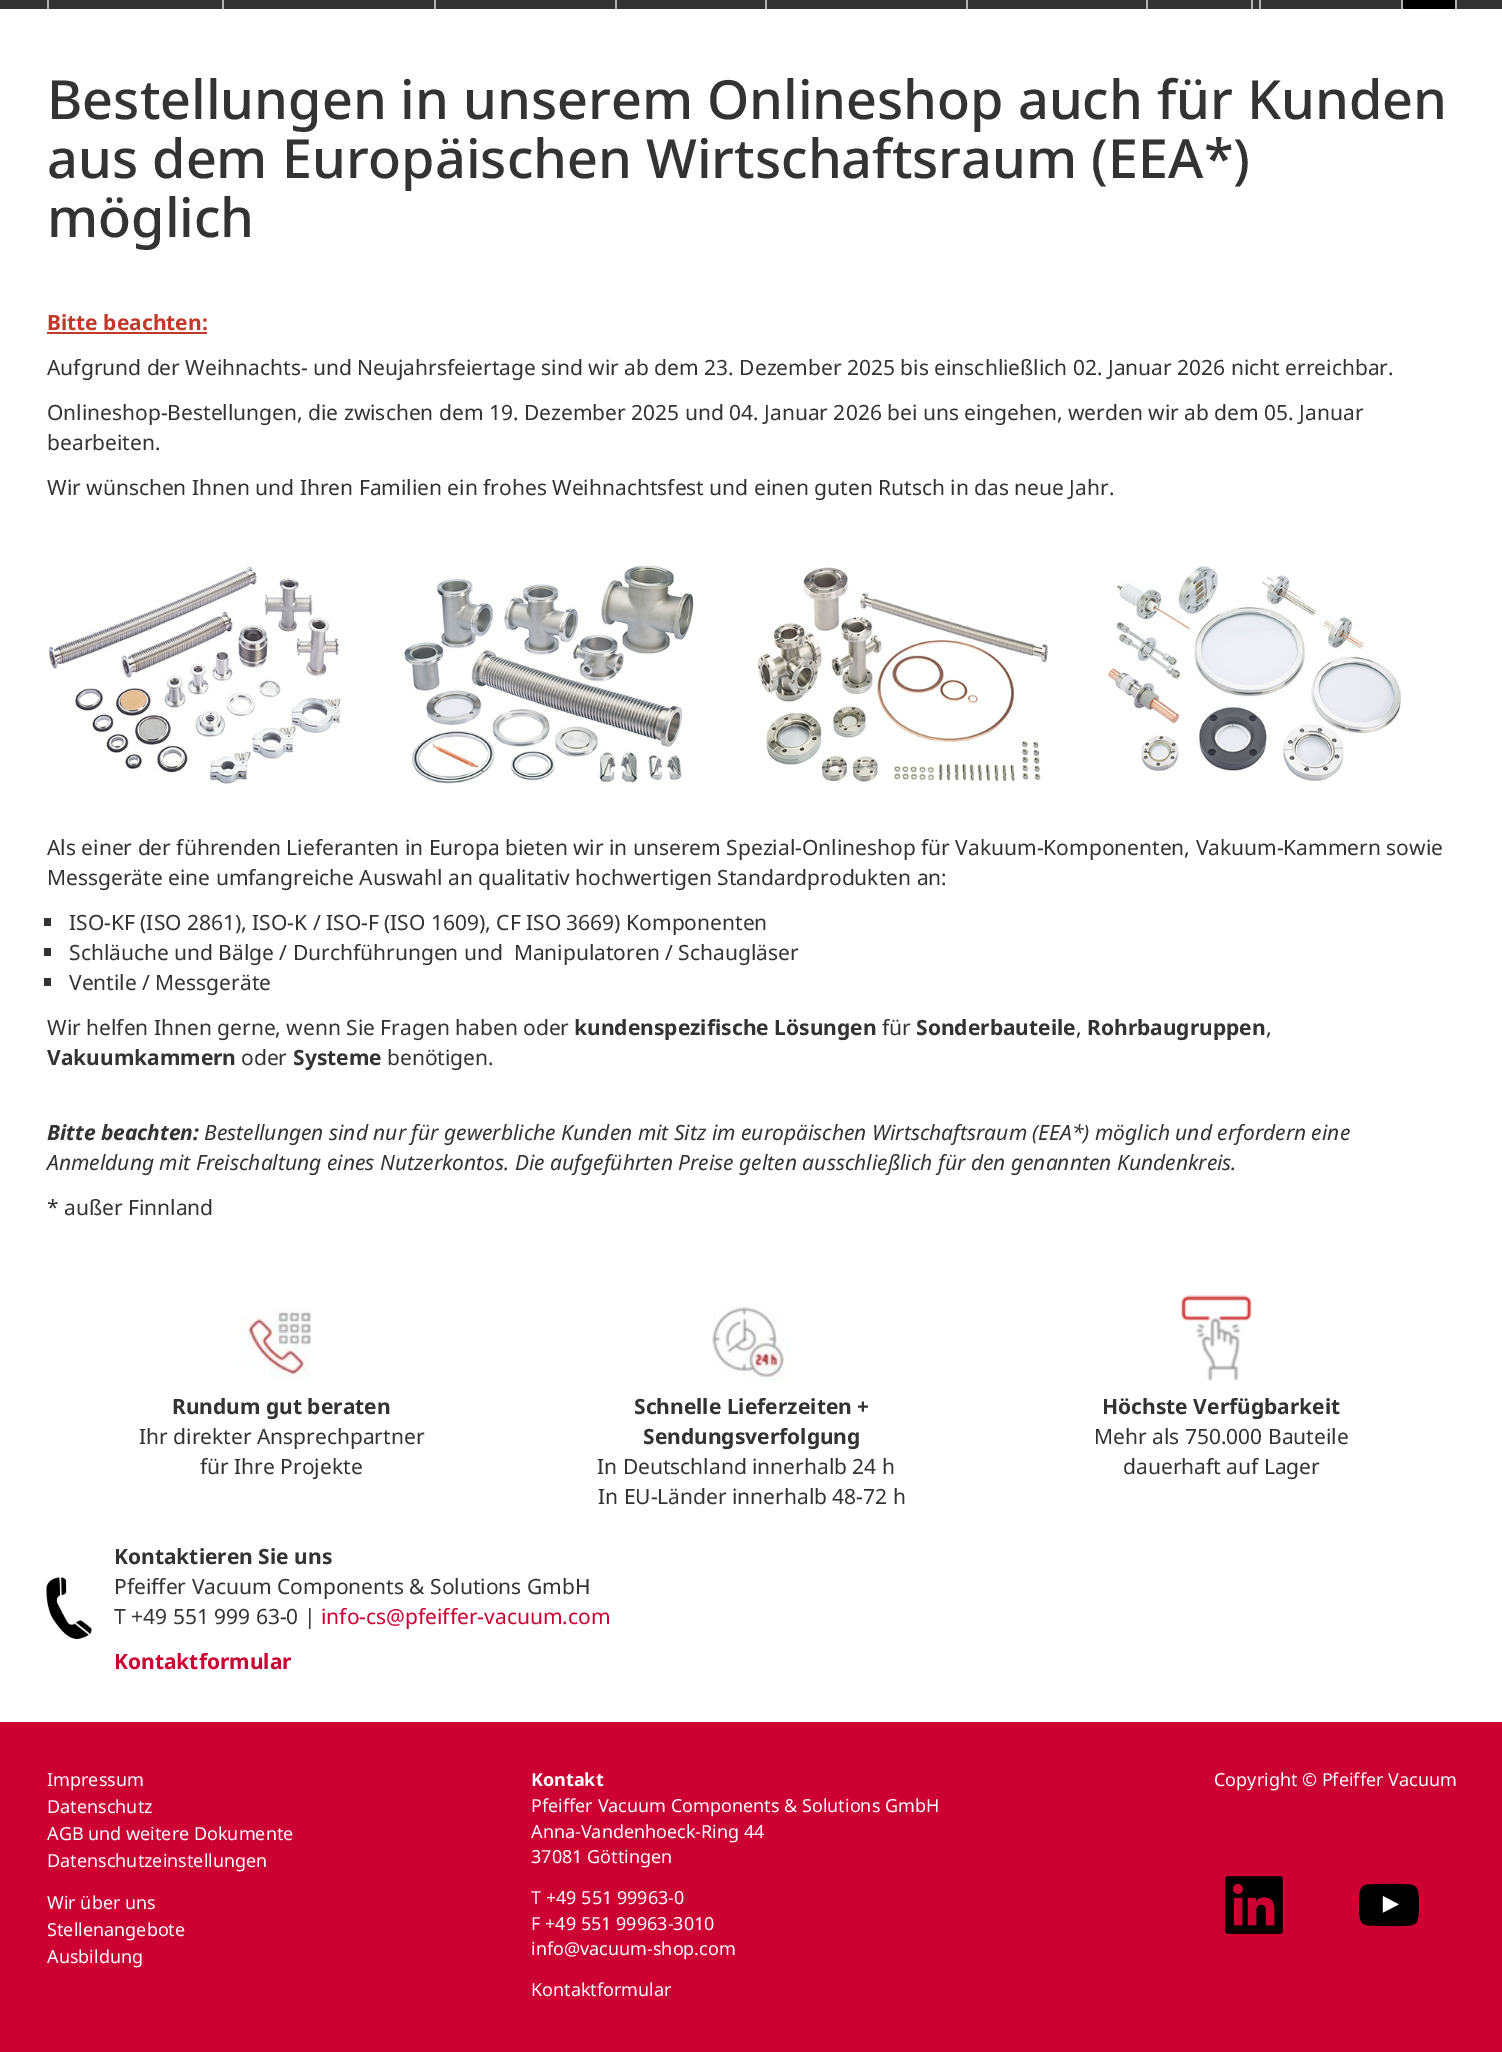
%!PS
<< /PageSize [1502 2052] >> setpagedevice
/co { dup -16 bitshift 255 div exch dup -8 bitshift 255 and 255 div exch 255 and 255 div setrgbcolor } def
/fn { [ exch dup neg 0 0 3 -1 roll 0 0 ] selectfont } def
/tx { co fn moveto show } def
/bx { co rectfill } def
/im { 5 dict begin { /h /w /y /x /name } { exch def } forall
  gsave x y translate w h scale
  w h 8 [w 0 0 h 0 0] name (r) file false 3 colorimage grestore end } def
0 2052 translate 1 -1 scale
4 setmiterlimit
0 0 1502 2052 16#CC0033 bx
0 0 1502 9 16#333333 bx
222 0 2 9 16#B3B3B3 bx
47 0 2 9 16#B3B3B3 bx
434 0 2 9 16#B3B3B3 bx
615 0 2 9 16#B3B3B3 bx
765 0 2 9 16#B3B3B3 bx
966 0 2 9 16#B3B3B3 bx
1146 0 2 9 16#B3B3B3 bx
1251 0 2 9 16#B3B3B3 bx
1401 0 2 9 16#B3B3B3 bx
1259 0 2 9 16#B3B3B3 bx
1455 0 2 9 16#B3B3B3 bx
1403 0 52 9 16#000000 bx
0 9 1502 1713 16#FFFFFF bx
47 332 160 2 16#C0392B bx
(media/1.raw) 47 564 294 220 im
(media/2.raw) 404 565 290 219 im
(media/3.raw) 757 567 291 216 im
(media/4.raw) 1106 566 295 215 im
44 918 7 8 16#333333 bx
44 948 7 8 16#333333 bx
44 978 7 8 16#333333 bx
(media/5.raw) 238 1308 73 72 im
(media/6.raw) 711 1303 82 80 im
(media/7.raw) 1180 1295 72 87 im
(media/8.raw) 46 1577 46 62 im
(media/9.raw) 1225 1876 58 58 im
(media/10.raw) 1359 1883 60 44 im
(Bestellungen in unserem Onlineshop auch für Kunden) 47 119 /NotoSans-Medium 54 16#333333 tx
(aus dem Europäischen Wirtschaftsraum \(EEA*\)) 47 178 /NotoSans-Medium 54 16#333333 tx
(möglich) 47 237 /NotoSans-Medium 54 16#333333 tx
(Bitte beachten:) 47 330 /NotoSans-Bold 21 16#C0392B tx
(Aufgrund der Weihnachts- und Neujahrsfeiertage sind wir ab dem 23. Dezember 2025 bis einschließlich 02. Januar 2026 nicht erreichbar.) 47 375 /NotoSans-Regular 21 16#333333 tx
(Onlineshop-Bestellungen, die zwischen dem 19. Dezember 2025 und 04. Januar 2026 bei uns eingehen, werden wir ab dem 05. Januar) 47 420 /NotoSans-Regular 21 16#333333 tx
(bearbeiten.) 47 450 /NotoSans-Regular 21 16#333333 tx
(Wir wünschen Ihnen und Ihren Familien ein frohes Weihnachtsfest und einen guten Rutsch in das neue Jahr.) 47 495 /NotoSans-Regular 21 16#333333 tx
(Als einer der führenden Lieferanten in Europa bieten wir in unserem Spezial-Onlineshop für Vakuum-Komponenten, Vakuum-Kammern sowie) 47 855 /NotoSans-Regular 21 16#333333 tx
(Messgeräte eine umfangreiche Auswahl an qualitativ hochwertigen Standardprodukten an:) 47 885 /NotoSans-Regular 21 16#333333 tx
(ISO-KF \(ISO 2861\), ISO-K / ISO-F \(ISO 1609\), CF ISO 3669\) Komponenten) 69 930 /NotoSans-Regular 21 16#333333 tx
(Schläuche und Bälge / Durchführungen und  Manipulatoren / Schaugläser) 69 960 /NotoSans-Regular 21 16#333333 tx
(Ventile / Messgeräte) 69 990 /NotoSans-Regular 21 16#333333 tx
(Wir helfen Ihnen gerne, wenn Sie Fragen haben oder) 47 1035 /NotoSans-Regular 21 16#333333 tx
(kundenspezifische Lösungen) 574 1035 /NotoSans-Bold 21 16#333333 tx
(für) 882 1035 /NotoSans-Regular 21 16#333333 tx
(Sonderbauteile) 916 1035 /NotoSans-Bold 21 16#333333 tx
(,) 1076 1035 /NotoSans-Regular 21 16#333333 tx
(Rohrbaugruppen) 1087 1035 /NotoSans-Bold 21 16#333333 tx
(,) 1266 1035 /NotoSans-Regular 21 16#333333 tx
(Vakuumkammern) 47 1065 /NotoSans-Bold 21 16#333333 tx
(oder) 241 1065 /NotoSans-Regular 21 16#333333 tx
(Systeme) 293 1065 /NotoSans-Bold 21 16#333333 tx
(benötigen.) 387 1065 /NotoSans-Regular 21 16#333333 tx
(Bitte beachten:) 47 1140 /NotoSans-BoldItalic 21 16#333333 tx
(Bestellungen sind nur für gewerbliche Kunden mit Sitz im europäischen Wirtschaftsraum \(EEA*\) möglich und erfordern eine) 204 1140 /NotoSans-Italic 21 16#333333 tx
(Anmeldung mit Freischaltung eines Nutzerkontos. Die aufgeführten Preise gelten ausschließlich für den genannten Kundenkreis.) 47 1170 /NotoSans-Italic 21 16#333333 tx
(* außer Finnland) 47 1215 /NotoSans-Regular 21 16#333333 tx
(Rundum gut beraten) 172 1414 /NotoSans-Bold 21 16#333333 tx
(Ihr direkter Ansprechpartner) 139 1444 /NotoSans-Regular 21 16#333333 tx
(für Ihre Projekte) 200 1474 /NotoSans-Regular 21 16#333333 tx
(Schnelle Lieferzeiten +) 634 1414 /NotoSans-Bold 21 16#333333 tx
(Sendungsverfolgung) 643 1444 /NotoSans-Bold 21 16#333333 tx
(In Deutschland innerhalb 24 h) 597 1474 /NotoSans-Regular 21 16#333333 tx
(In EU-Länder innerhalb 48-72 h) 598 1504 /NotoSans-Regular 21 16#333333 tx
(Höchste Verfügbarkeit) 1102 1414 /NotoSans-Bold 21 16#333333 tx
(Mehr als 750.000 Bauteile) 1094 1444 /NotoSans-Regular 21 16#333333 tx
(dauerhaft auf Lager) 1123 1474 /NotoSans-Regular 21 16#333333 tx
(Kontaktieren Sie uns) 114 1564 /NotoSans-Bold 21 16#333333 tx
(Pfeiffer Vacuum Components & Solutions GmbH) 114 1594 /NotoSans-Regular 21 16#333333 tx
(T +49 551 999 63-0 |) 114 1624 /NotoSans-Regular 21 16#333333 tx
(info-cs@pfeiffer-vacuum.com) 321 1624 /NotoSans-Regular 21 16#CC0033 tx
(Kontaktformular) 114 1669 /NotoSans-Bold 21 16#CC0033 tx
(Impressum) 47 1786 /NotoSans-Regular 18 16#FFFFFF tx
(Datenschutz) 47 1813 /NotoSans-Regular 18 16#FFFFFF tx
(AGB und weitere Dokumente) 47 1840 /NotoSans-Regular 18 16#FFFFFF tx
(Datenschutzeinstellungen) 47 1867 /NotoSans-Regular 18 16#FFFFFF tx
(Wir über uns) 47 1909 /NotoSans-Regular 18 16#FFFFFF tx
(Stellenangebote) 47 1936 /NotoSans-Regular 18 16#FFFFFF tx
(Ausbildung) 47 1963 /NotoSans-Regular 18 16#FFFFFF tx
(Kontakt) 531 1786 /NotoSans-Bold 18 16#FFFFFF tx
(Pfeiffer Vacuum Components & Solutions GmbH) 531 1812 /NotoSans-Regular 18 16#FFFFFF tx
(Anna-Vandenhoeck-Ring 44) 531 1838 /NotoSans-Regular 18 16#FFFFFF tx
(37081 Göttingen) 531 1863 /NotoSans-Regular 18 16#FFFFFF tx
(T +49 551 99963-0) 531 1904 /NotoSans-Regular 18 16#FFFFFF tx
(F +49 551 99963-3010) 531 1930 /NotoSans-Regular 18 16#FFFFFF tx
(info@vacuum-shop.com) 531 1955 /NotoSans-Regular 18 16#FFFFFF tx
(Kontaktformular) 531 1996 /NotoSans-Regular 18 16#FFFFFF tx
(Copyright © Pfeiffer Vacuum) 1214 1786 /NotoSans-Regular 18 16#FFFFFF tx
showpage
